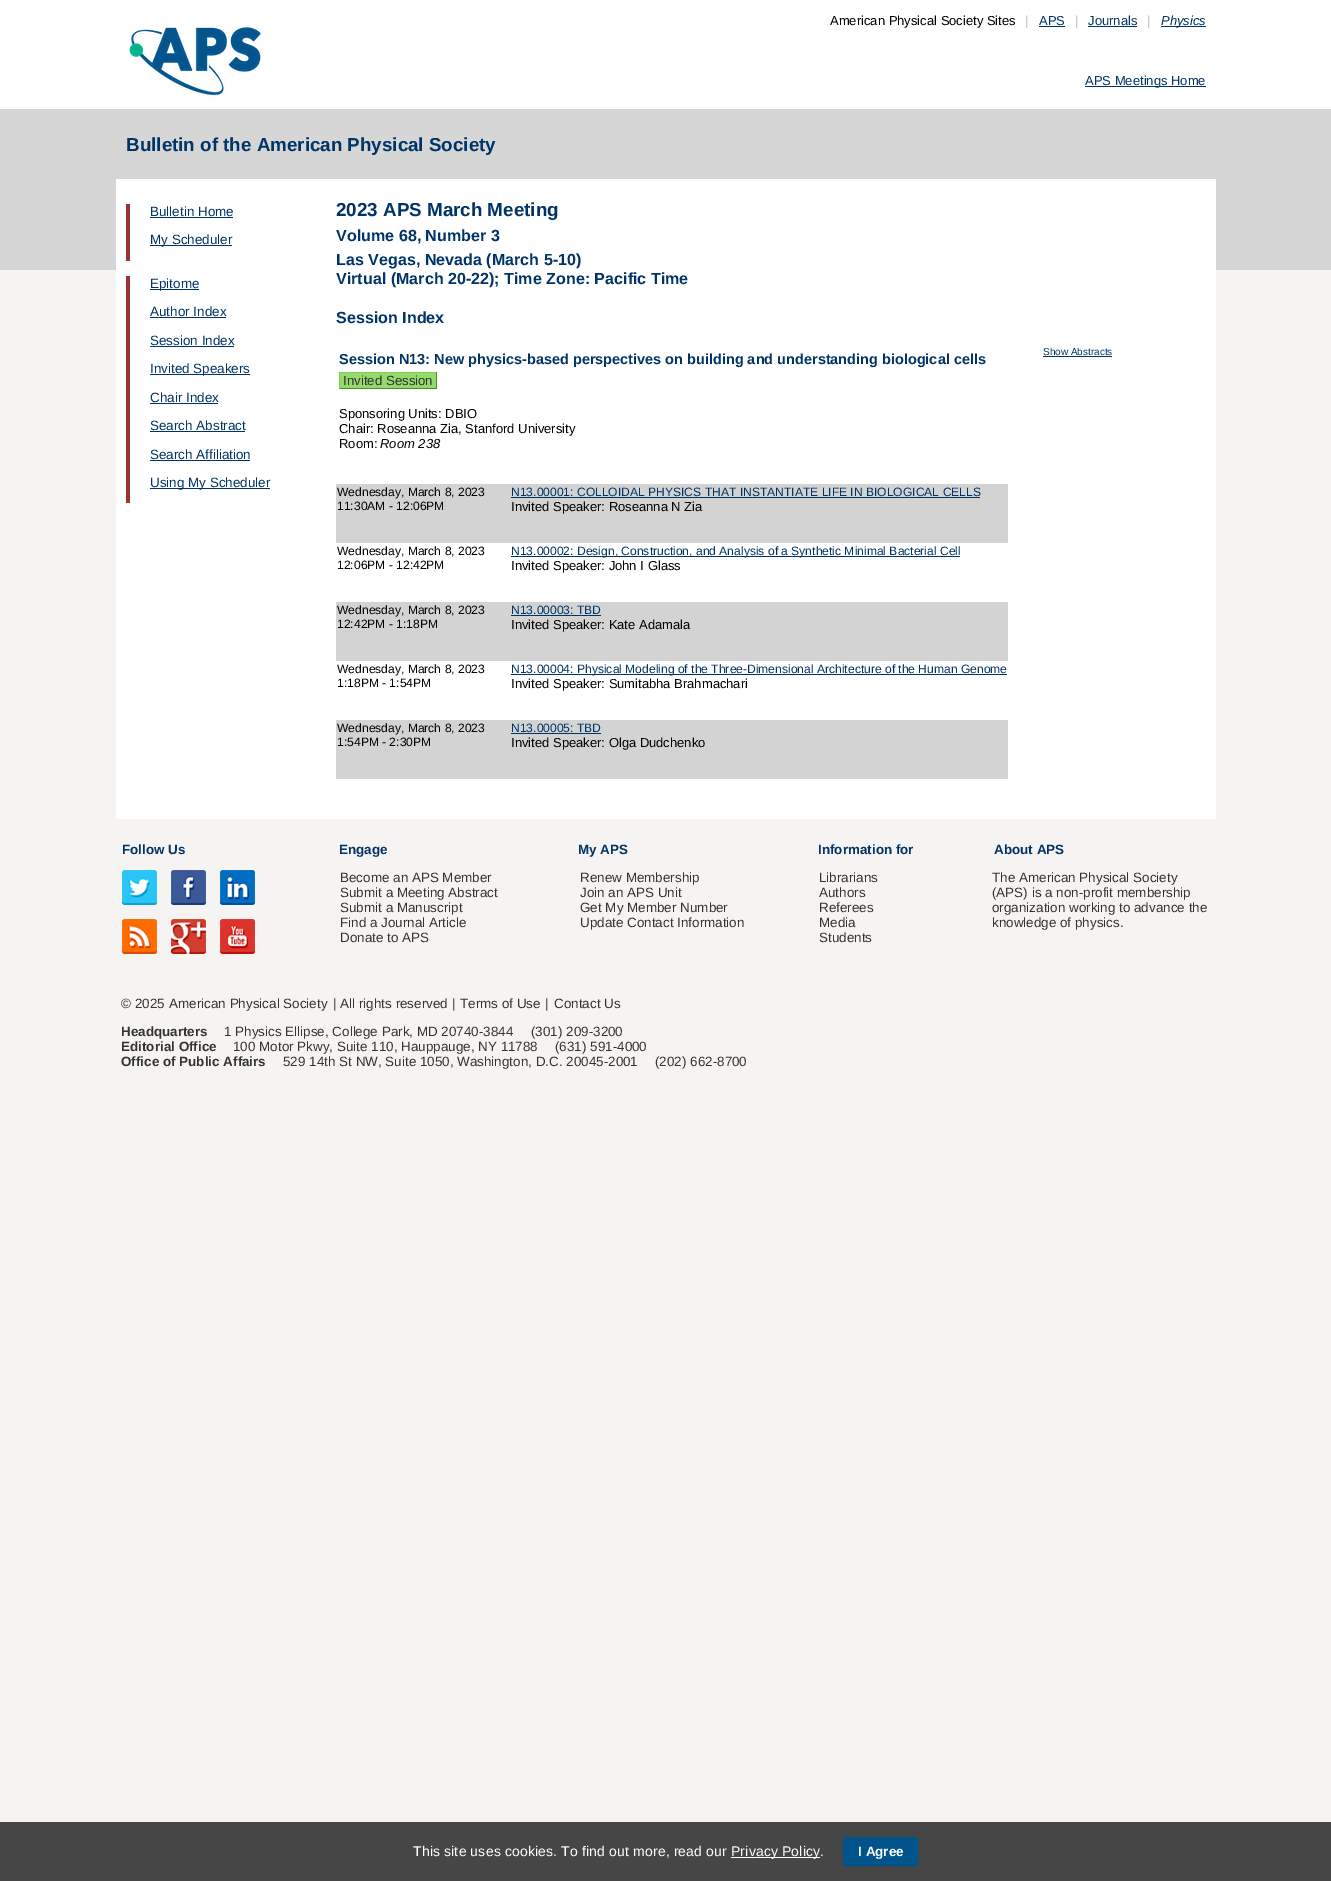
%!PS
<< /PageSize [1331 1881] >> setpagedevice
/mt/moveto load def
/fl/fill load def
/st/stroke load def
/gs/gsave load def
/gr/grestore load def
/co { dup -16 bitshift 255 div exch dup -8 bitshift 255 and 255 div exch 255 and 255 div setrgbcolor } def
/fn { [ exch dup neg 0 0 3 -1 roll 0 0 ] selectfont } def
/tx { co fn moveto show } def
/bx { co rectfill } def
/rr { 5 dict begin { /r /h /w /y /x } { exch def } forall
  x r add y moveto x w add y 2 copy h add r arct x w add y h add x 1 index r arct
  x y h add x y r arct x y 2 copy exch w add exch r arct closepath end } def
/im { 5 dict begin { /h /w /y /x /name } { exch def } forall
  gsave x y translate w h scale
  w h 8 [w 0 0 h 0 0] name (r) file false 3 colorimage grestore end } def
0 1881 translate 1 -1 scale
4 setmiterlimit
0 0 1331 1881 16#F6F4F2 bx
(media/1.raw) 0 0 1331 270 im
116 109 1100 710 16#FFFFFF bx
1039 26 26 1 16#003366 bx
1088 26 49 1 16#003366 bx
1161 26 45 1 16#003366 bx
(media/2.raw) 129 25 132 73 im
1085 86 121 1 16#003366 bx
116 109 1100 70 16#D6D6D6 bx
126 204 4 57 16#993333 bx
150 217 83 1 16#003366 bx
150 245 82 1 16#003366 bx
126 276 4 227 16#993333 bx
150 289 49 1 16#003366 bx
150 317 76 1 16#003366 bx
150 346 84 1 16#003366 bx
150 374 100 1 16#003366 bx
150 403 68 1 16#003366 bx
150 431 95 1 16#003366 bx
150 460 100 1 16#003366 bx
150 488 120 1 16#003366 bx
1043 356 69 1 16#003366 bx
340 373 96 15 16#95DA6D bx
339 372 98 1 16#7BD148 bx
436 372 1 17 16#528B30 bx
339 388 98 1 16#528B30 bx
339 372 1 17 16#7BD148 bx
336 484 672 59 16#D3D3D3 bx
511 497 469 1 16#003366 bx
511 556 449 1 16#003366 bx
336 602 672 59 16#D3D3D3 bx
511 615 90 1 16#003366 bx
511 674 496 1 16#003366 bx
336 720 672 59 16#D3D3D3 bx
511 733 90 1 16#003366 bx
(media/3.raw) 122 870 35 35 im
(media/4.raw) 171 870 35 35 im
(media/5.raw) 220 870 35 35 im
(media/6.raw) 122 919 35 35 im
(media/7.raw) 171 919 35 35 im
(media/8.raw) 220 919 35 35 im
0 1822 1331 59 16#474646 bx
731 1857 89 1 16#FFFFFF bx
16#00538B co
843.5 1837.5 74 28 1.5 rr gs fl gr
st
(American Physical Society Sites) 830 25 /LiberationSans-Regular 13 16#000000 tx
(|) 1025 25 /LiberationSans-Regular 13 16#BBBBBB tx
(APS) 1039 25 /LiberationSans-Regular 13 16#003366 tx
(|) 1075 25 /LiberationSans-Regular 13 16#BBBBBB tx
(Journals) 1088 25 /LiberationSans-Regular 13 16#003366 tx
(|) 1147 25 /LiberationSans-Regular 13 16#BBBBBB tx
(Physics) 1161 25 /LiberationSans-Italic 13 16#003366 tx
(APS Meetings Home) 1085 85 /LiberationSans-Regular 13 16#003366 tx
(Bulletin of the American Physical Society) 126 151 /LiberationSans-Bold 18.8 16#003366 tx
(Bulletin Home) 150 216 /LiberationSans-Regular 13.45 16#003366 tx
(My Scheduler) 150 244 /LiberationSans-Regular 13.45 16#003366 tx
(Epitome) 150 288 /LiberationSans-Regular 13.45 16#003366 tx
(Author Index) 150 316 /LiberationSans-Regular 13.45 16#003366 tx
(Session Index) 150 345 /LiberationSans-Regular 13.45 16#003366 tx
(Invited Speakers) 150 373 /LiberationSans-Regular 13.45 16#003366 tx
(Chair Index) 150 402 /LiberationSans-Regular 13.45 16#003366 tx
(Search Abstract) 150 430 /LiberationSans-Regular 13.45 16#003366 tx
(Search Affiliation) 150 459 /LiberationSans-Regular 13.45 16#003366 tx
(Using My Scheduler) 150 487 /LiberationSans-Regular 13.45 16#003366 tx
(2023 APS March Meeting) 336 216 /LiberationSans-Bold 18.8 16#003366 tx
(Volume 68, Number 3) 336 241 /LiberationSans-Bold 16.1 16#003366 tx
(Las Vegas, Nevada \(March 5-10\)) 336 265 /LiberationSans-Bold 16.1 16#003366 tx
(Virtual \(March 20-22\); Time Zone: Pacific Time) 336 284 /LiberationSans-Bold 16.1 16#003366 tx
(Session Index) 336 323 /LiberationSans-Bold 16.1 16#003366 tx
(Show Abstracts) 1043 355 /LiberationSans-Regular 10 16#003366 tx
(Session N13: New physics-based perspectives on building and understanding biological cells) 339 364 /LiberationSans-Bold 14.5 16#003366 tx
(Invited Session) 343 385 /LiberationSans-Regular 13.25 16#333333 tx
(Sponsoring Units: DBIO) 339 418 /LiberationSans-Regular 13 16#000000 tx
(Chair: Roseanna Zia, Stanford University) 339 433 /LiberationSans-Regular 13 16#000000 tx
(Room:) 339 448 /LiberationSans-Regular 13 16#000000 tx
(Room 238) 380 448 /LiberationSans-Italic 13 16#000000 tx
(Wednesday, March 8, 2023) 337 496 /LiberationSans-Regular 12.1 16#000000 tx
(11:30AM - 12:06PM) 337 510 /LiberationSans-Regular 12.1 16#000000 tx
(N13.00001: COLLOIDAL PHYSICS THAT INSTANTIATE LIFE IN BIOLOGICAL CELLS) 511 496 /LiberationSans-Regular 12.1 16#003366 tx
(Invited Speaker: Roseanna N Zia) 511 511 /LiberationSans-Regular 13 16#000000 tx
(Wednesday, March 8, 2023) 337 555 /LiberationSans-Regular 12.1 16#000000 tx
(12:06PM - 12:42PM) 337 569 /LiberationSans-Regular 12.1 16#000000 tx
(N13.00002: Design, Construction, and Analysis of a Synthetic Minimal Bacterial Cell) 511 555 /LiberationSans-Regular 12.1 16#003366 tx
(Invited Speaker: John I Glass) 511 570 /LiberationSans-Regular 13 16#000000 tx
(Wednesday, March 8, 2023) 337 614 /LiberationSans-Regular 12.1 16#000000 tx
(12:42PM - 1:18PM) 337 628 /LiberationSans-Regular 12.1 16#000000 tx
(N13.00003: TBD) 511 614 /LiberationSans-Regular 12.1 16#003366 tx
(Invited Speaker: Kate Adamala) 511 629 /LiberationSans-Regular 13 16#000000 tx
(Wednesday, March 8, 2023) 337 673 /LiberationSans-Regular 12.1 16#000000 tx
(1:18PM - 1:54PM) 337 687 /LiberationSans-Regular 12.1 16#000000 tx
(N13.00004: Physical Modeling of the Three-Dimensional Architecture of the Human Genome) 511 673 /LiberationSans-Regular 12.1 16#003366 tx
(Invited Speaker: Sumitabha Brahmachari) 511 688 /LiberationSans-Regular 13 16#000000 tx
(Wednesday, March 8, 2023) 337 732 /LiberationSans-Regular 12.1 16#000000 tx
(1:54PM - 2:30PM) 337 746 /LiberationSans-Regular 12.1 16#000000 tx
(N13.00005: TBD) 511 732 /LiberationSans-Regular 12.1 16#003366 tx
(Invited Speaker: Olga Dudchenko) 511 747 /LiberationSans-Regular 13 16#000000 tx
(Follow Us) 122 854 /LiberationSans-Bold 13.45 16#003366 tx
(Engage) 339 854 /LiberationSans-Bold 13.45 16#003366 tx
(Become an APS Member) 340 882 /LiberationSans-Regular 13.45 16#333333 tx
(Submit a Meeting Abstract) 340 897 /LiberationSans-Regular 13.45 16#333333 tx
(Submit a Manuscript) 340 912 /LiberationSans-Regular 13.45 16#333333 tx
(Find a Journal Article) 340 927 /LiberationSans-Regular 13.45 16#333333 tx
(Donate to APS) 340 942 /LiberationSans-Regular 13.45 16#333333 tx
(My APS) 578 854 /LiberationSans-Bold 13.45 16#003366 tx
(Renew Membership) 580 882 /LiberationSans-Regular 13.45 16#333333 tx
(Join an APS Unit) 580 897 /LiberationSans-Regular 13.45 16#333333 tx
(Get My Member Number) 580 912 /LiberationSans-Regular 13.45 16#333333 tx
(Update Contact Information) 580 927 /LiberationSans-Regular 13.45 16#333333 tx
(Information for) 818 854 /LiberationSans-Bold 13.45 16#003366 tx
(Librarians) 819 882 /LiberationSans-Regular 13.45 16#333333 tx
(Authors) 819 897 /LiberationSans-Regular 13.45 16#333333 tx
(Referees) 819 912 /LiberationSans-Regular 13.45 16#333333 tx
(Media) 819 927 /LiberationSans-Regular 13.45 16#333333 tx
(Students) 819 942 /LiberationSans-Regular 13.45 16#333333 tx
(About APS) 994 854 /LiberationSans-Bold 13.45 16#003366 tx
(The American Physical Society) 992 882 /LiberationSans-Regular 13.45 16#333333 tx
(\(APS\) is a non-profit membership) 992 897 /LiberationSans-Regular 13.45 16#333333 tx
(organization working to advance the) 992 912 /LiberationSans-Regular 13.45 16#333333 tx
(knowledge of physics.) 992 927 /LiberationSans-Regular 13.45 16#333333 tx
(© 2025) 121 1008 /LiberationSans-Regular 13.45 16#333333 tx
(American Physical Society) 169 1008 /LiberationSans-Regular 13.45 16#333333 tx
(| All rights reserved |) 333 1008 /LiberationSans-Regular 13.45 16#333333 tx
(Terms of Use) 460 1008 /LiberationSans-Regular 13.45 16#333333 tx
(|) 545 1008 /LiberationSans-Regular 13.45 16#333333 tx
(Contact Us) 554 1008 /LiberationSans-Regular 13.45 16#333333 tx
(Headquarters) 121 1036 /LiberationSans-Bold 13.45 16#333333 tx
(1 Physics Ellipse, College Park, MD 20740-3844) 224 1036 /LiberationSans-Regular 13.45 16#333333 tx
(\(301\) 209-3200) 531 1036 /LiberationSans-Regular 13.45 16#333333 tx
(Editorial Office) 121 1051 /LiberationSans-Bold 13.45 16#333333 tx
(100 Motor Pkwy, Suite 110, Hauppauge, NY 11788) 233 1051 /LiberationSans-Regular 13.45 16#333333 tx
(\(631\) 591-4000) 555 1051 /LiberationSans-Regular 13.45 16#333333 tx
(Office of Public Affairs) 121 1066 /LiberationSans-Bold 13.45 16#333333 tx
(529 14th St NW, Suite 1050, Washington, D.C. 20045-2001) 283 1066 /LiberationSans-Regular 13.45 16#333333 tx
(\(202\) 662-8700) 655 1066 /LiberationSans-Regular 13.45 16#333333 tx
/LiberationSans-Regular 14 fn
16#FFFFFF co
413 1856 mt .15 0 (This site uses cookies. To find out more, read our) ashow
731 1856 mt .15 0 (Privacy Policy.) ashow
(I Agree) 858 1856 /LiberationSans-Bold 13.5 16#FFFFFF tx
showpage
